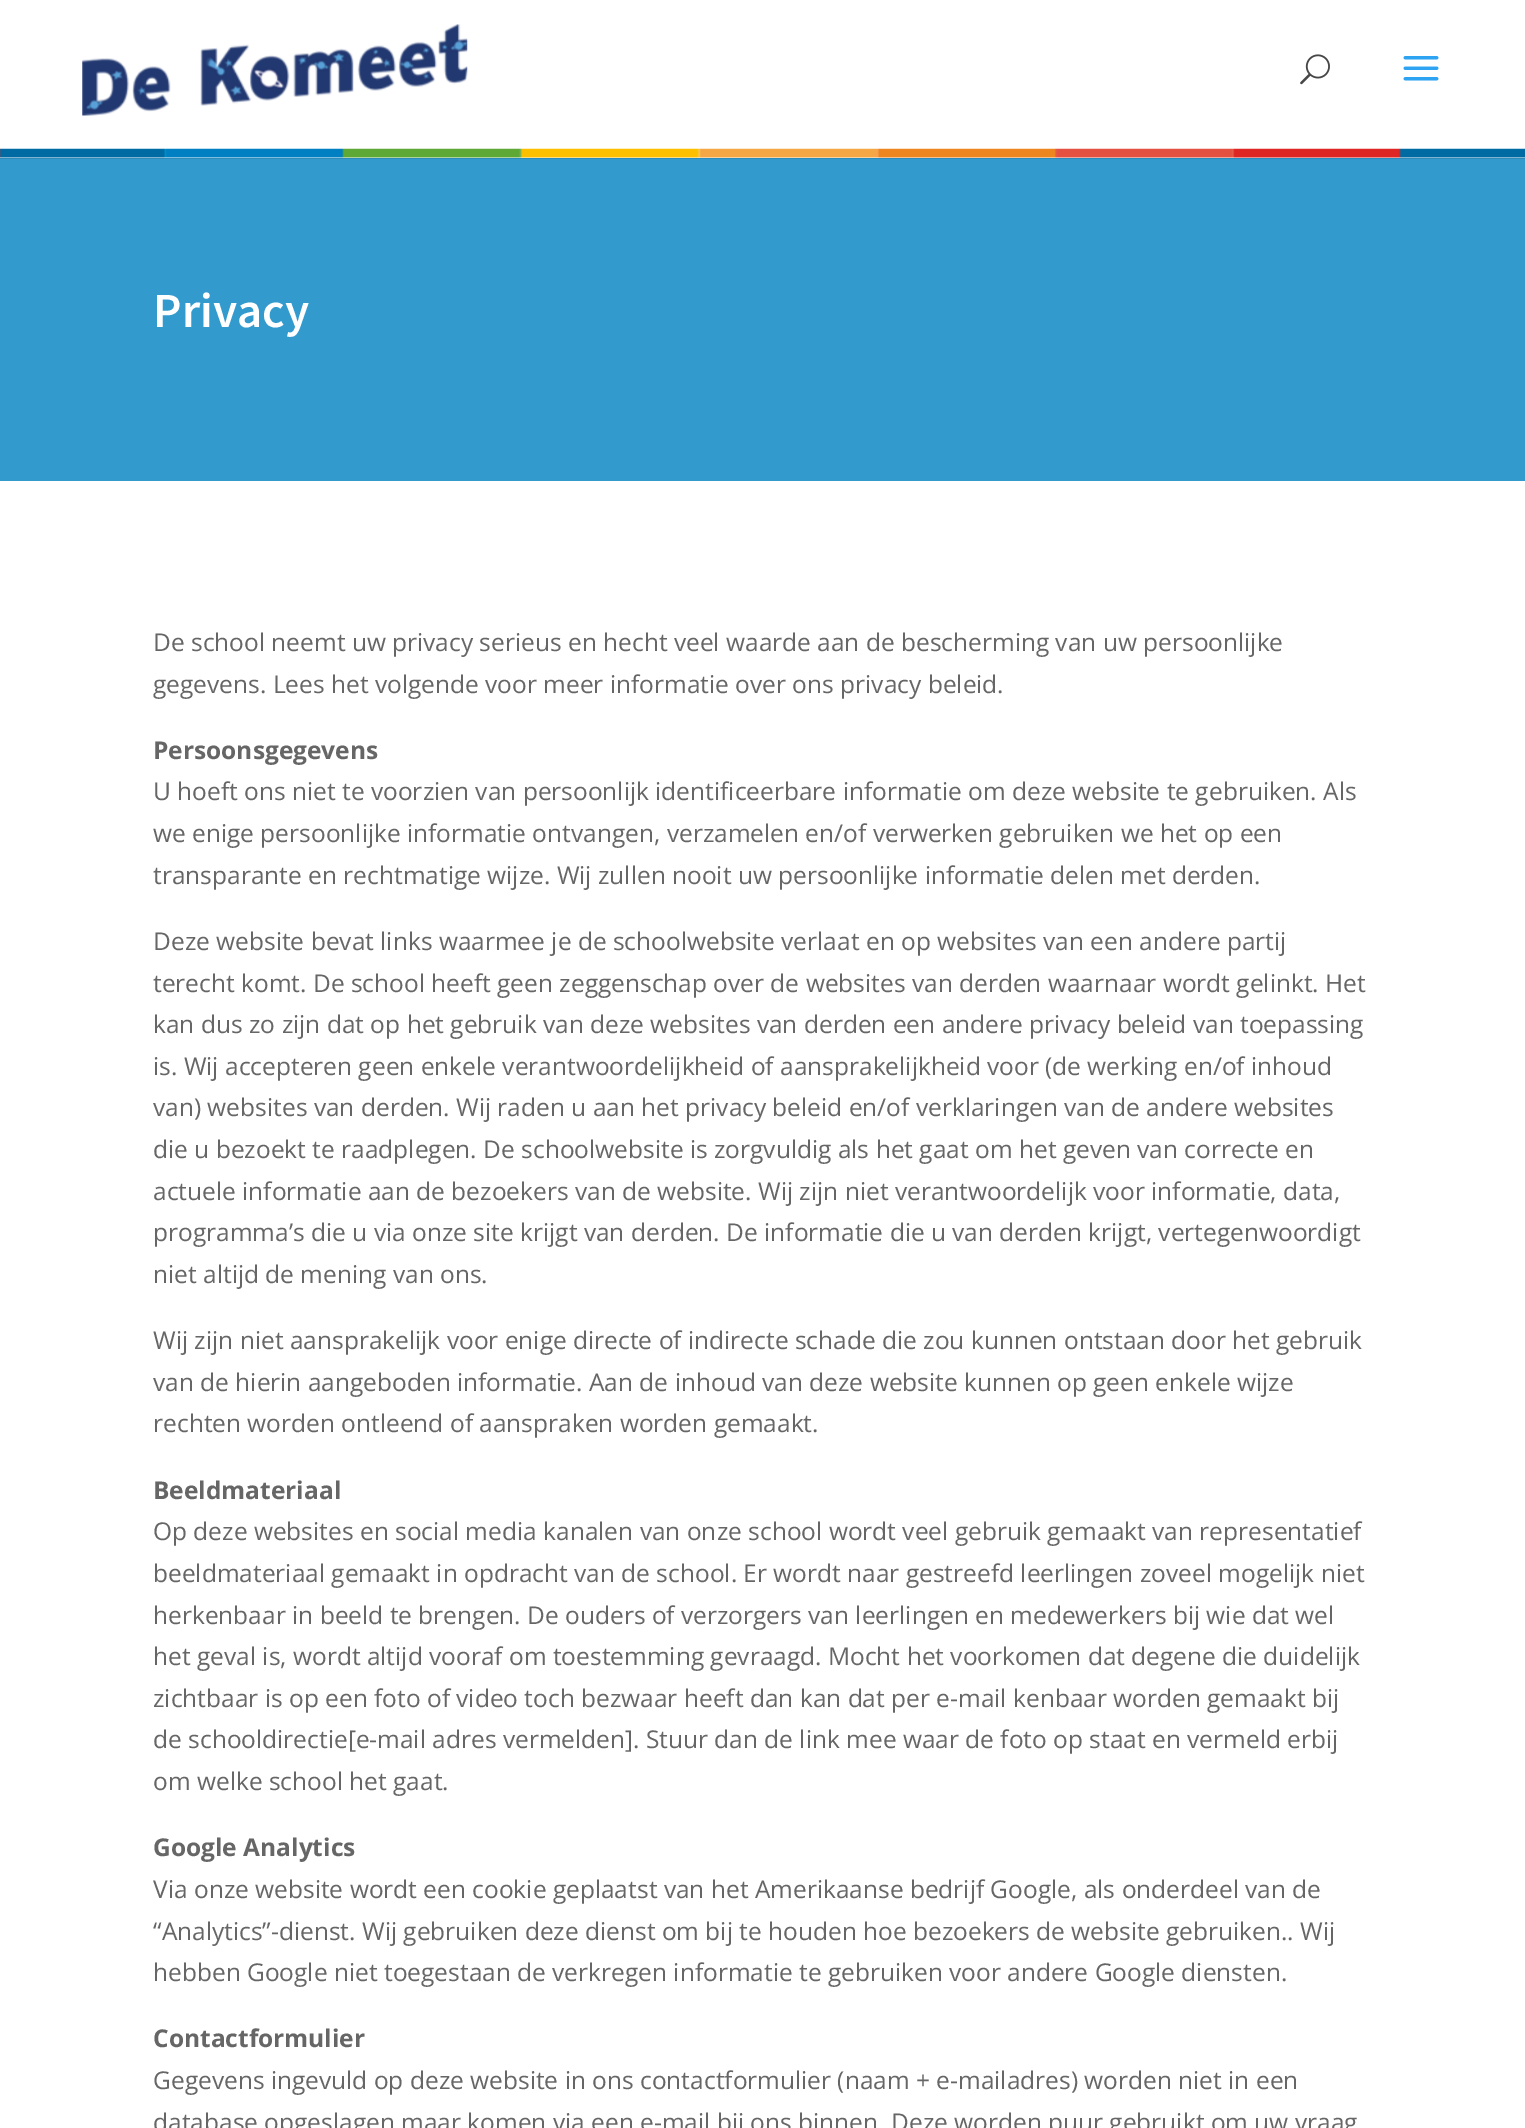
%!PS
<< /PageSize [1525 2128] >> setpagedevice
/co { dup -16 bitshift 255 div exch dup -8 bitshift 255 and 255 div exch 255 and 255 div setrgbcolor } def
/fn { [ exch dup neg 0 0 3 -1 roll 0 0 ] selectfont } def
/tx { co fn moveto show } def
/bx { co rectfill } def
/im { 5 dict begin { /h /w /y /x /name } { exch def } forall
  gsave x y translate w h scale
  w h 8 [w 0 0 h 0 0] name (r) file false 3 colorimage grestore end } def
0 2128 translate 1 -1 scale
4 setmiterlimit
0 0 1525 2128 16#FFFFFF bx
0 158 1525 1 16#2E8BB9 bx
(media/1.raw) 0 148 1525 10 im
(media/2.raw) 82 24 386 92 im
(media/3.raw) 1300 54 30 31 im
(media/4.raw) 1403 56 36 25 im
0 159 1525 322 16#339ACE bx
(Privacy) 153 327 /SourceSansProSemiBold-SemiBold 49 16#FFFFFF tx
(De school neemt uw privacy serieus en hecht veel waarde aan de bescherming van uw persoonlijke) 153 651 /OpenSans-Regular 24.5 16#666666 tx
(gegevens. Lees het volgende voor meer informatie over ons privacy beleid.) 153 693 /OpenSans-Regular 24.5 16#666666 tx
(Persoonsgegevens) 153 759 /OpenSans-Bold 24.5 16#666666 tx
(U hoeft ons niet te voorzien van persoonlijk identificeerbare informatie om deze website te gebruiken. Als) 153 800 /OpenSans-Regular 24.5 16#666666 tx
(we enige persoonlijke informatie ontvangen, verzamelen en/of verwerken gebruiken we het op een) 153 842 /OpenSans-Regular 24.5 16#666666 tx
(transparante en rechtmatige wijze. Wij zullen nooit uw persoonlijke informatie delen met derden.) 153 884 /OpenSans-Regular 24.5 16#666666 tx
(Deze website bevat links waarmee je de schoolwebsite verlaat en op websites van een andere partij) 153 950 /OpenSans-Regular 24.5 16#666666 tx
(terecht komt. De school heeft geen zeggenschap over de websites van derden waarnaar wordt gelinkt. Het) 153 992 /OpenSans-Regular 24.5 16#666666 tx
(kan dus zo zijn dat op het gebruik van deze websites van derden een andere privacy beleid van toepassing) 153 1033 /OpenSans-Regular 24.5 16#666666 tx
(is. Wij accepteren geen enkele verantwoordelijkheid of aansprakelijkheid voor \(de werking en/of inhoud) 153 1075 /OpenSans-Regular 24.5 16#666666 tx
(van\) websites van derden. Wij raden u aan het privacy beleid en/of verklaringen van de andere websites) 153 1116 /OpenSans-Regular 24.5 16#666666 tx
(die u bezoekt te raadplegen. De schoolwebsite is zorgvuldig als het gaat om het geven van correcte en) 153 1158 /OpenSans-Regular 24.5 16#666666 tx
(actuele informatie aan de bezoekers van de website. Wij zijn niet verantwoordelijk voor informatie, data,) 153 1200 /OpenSans-Regular 24.5 16#666666 tx
(programma’s die u via onze site krijgt van derden. De informatie die u van derden krijgt, vertegenwoordigt) 153 1241 /OpenSans-Regular 24.5 16#666666 tx
(niet altijd de mening van ons.) 153 1283 /OpenSans-Regular 24.5 16#666666 tx
(Wij zijn niet aansprakelijk voor enige directe of indirecte schade die zou kunnen ontstaan door het gebruik) 153 1349 /OpenSans-Regular 24.5 16#666666 tx
(van de hierin aangeboden informatie. Aan de inhoud van deze website kunnen op geen enkele wijze) 153 1391 /OpenSans-Regular 24.5 16#666666 tx
(rechten worden ontleend of aanspraken worden gemaakt.) 153 1432 /OpenSans-Regular 24.5 16#666666 tx
(Beeldmateriaal) 153 1499 /OpenSans-Bold 24.5 16#666666 tx
(Op deze websites en social media kanalen van onze school wordt veel gebruik gemaakt van representatief) 153 1540 /OpenSans-Regular 24.5 16#666666 tx
(beeldmateriaal gemaakt in opdracht van de school. Er wordt naar gestreefd leerlingen zoveel mogelijk niet) 153 1582 /OpenSans-Regular 24.5 16#666666 tx
(herkenbaar in beeld te brengen. De ouders of verzorgers van leerlingen en medewerkers bij wie dat wel) 153 1624 /OpenSans-Regular 24.5 16#666666 tx
(het geval is, wordt altijd vooraf om toestemming gevraagd. Mocht het voorkomen dat degene die duidelijk) 153 1665 /OpenSans-Regular 24.5 16#666666 tx
(zichtbaar is op een foto of video toch bezwaar heeft dan kan dat per e-mail kenbaar worden gemaakt bij) 153 1707 /OpenSans-Regular 24.5 16#666666 tx
(de schooldirectie[e-mail adres vermelden]. Stuur dan de link mee waar de foto op staat en vermeld erbij) 153 1748 /OpenSans-Regular 24.5 16#666666 tx
(om welke school het gaat.) 153 1790 /OpenSans-Regular 24.5 16#666666 tx
(Google Analytics) 153 1856 /OpenSans-Bold 24.5 16#666666 tx
(Via onze website wordt een cookie geplaatst van het Amerikaanse bedrijf Google, als onderdeel van de) 153 1898 /OpenSans-Regular 24.5 16#666666 tx
(“Analytics”-dienst. Wij gebruiken deze dienst om bij te houden hoe bezoekers de website gebruiken.. Wij) 153 1940 /OpenSans-Regular 24.5 16#666666 tx
(hebben Google niet toegestaan de verkregen informatie te gebruiken voor andere Google diensten.) 153 1981 /OpenSans-Regular 24.5 16#666666 tx
(Contactformulier) 153 2047 /OpenSans-Bold 24.5 16#666666 tx
(Gegevens ingevuld op deze website in ons contactformulier \(naam + e-mailadres\) worden niet in een) 153 2089 /OpenSans-Regular 24.5 16#666666 tx
(database opgeslagen maar komen via een e-mail bij ons binnen. Deze worden puur gebruikt om uw vraag) 153 2131 /OpenSans-Regular 24.5 16#666666 tx
showpage
